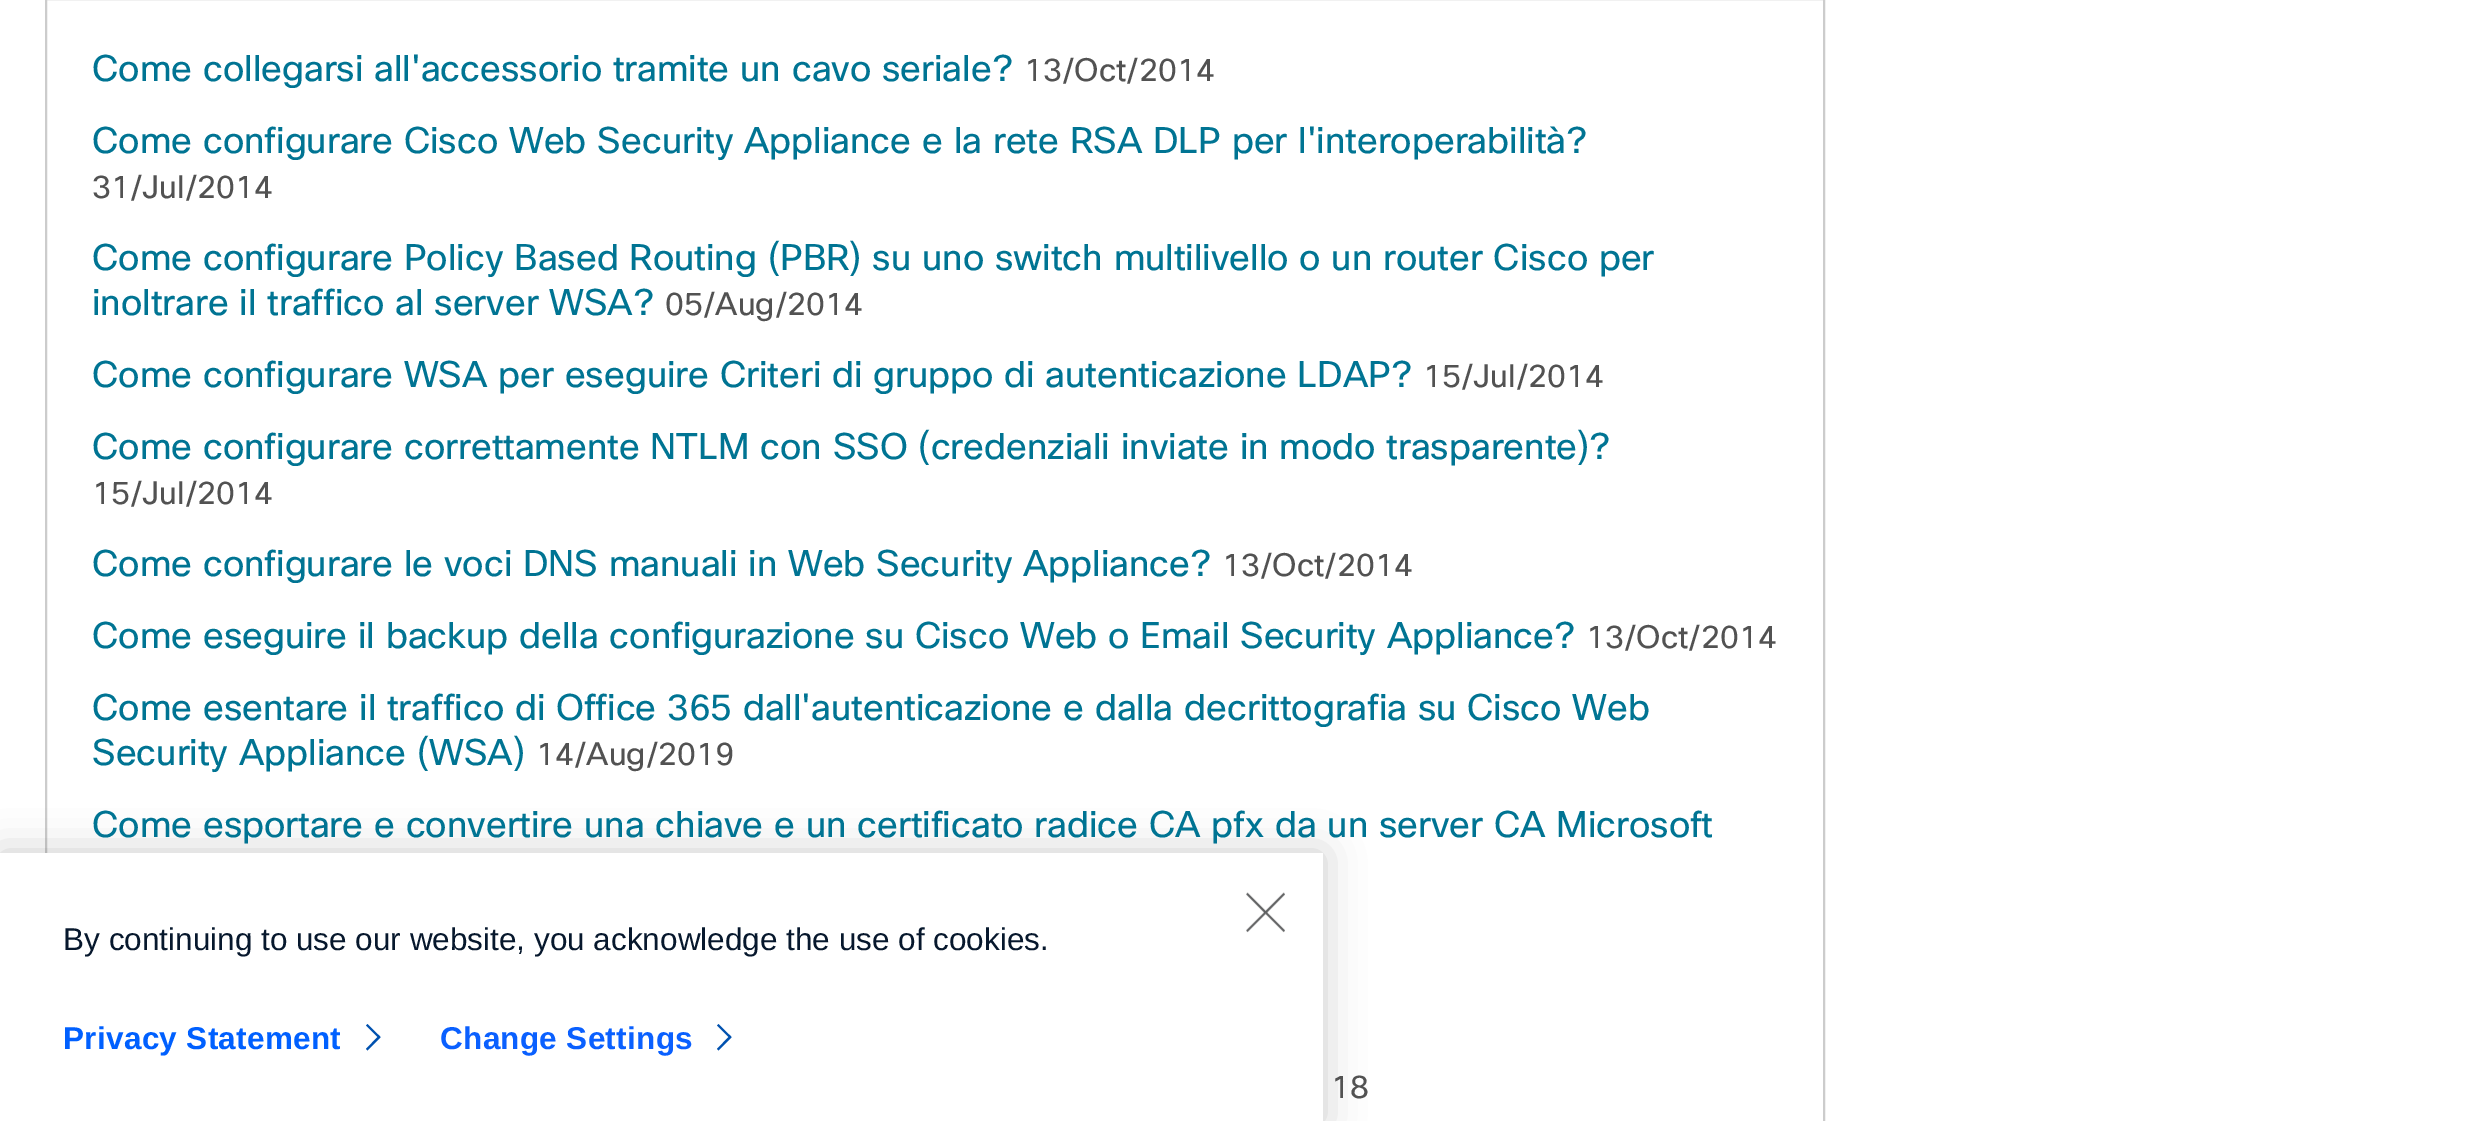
%!PS
<< /PageSize [2481 1121] /PageUsesTransparency true >> setpagedevice
/mt/moveto load def
/li/lineto load def
/ct/curveto load def
/cp/closepath load def
/fl/fill load def
/lw/setlinewidth load def
/co { dup -16 bitshift 255 div exch dup -8 bitshift 255 and 255 div exch 255 and 255 div setrgbcolor } def
/fn { [ exch dup neg 0 0 3 -1 roll 0 0 ] selectfont } def
/tx { co fn moveto show } def
/bx { co rectfill } def
/al { dup .setfillconstantalpha .setstrokeconstantalpha } def
/rr { 5 dict begin { /r /h /w /y /x } { exch def } forall
  x r add y moveto x w add y 2 copy h add r arct x w add y h add x 1 index r arct
  x y h add x y r arct x y 2 copy exch w add exch r arct closepath end } def
/sh { 12 dict begin { /a /b /q /h /w /y /x } { exch def } forall gsave /was 0 def
  9 -2 -9 { dup b mul 4 div /e exch def 1 sub .425 mul 2.718 exch exp 1 add a .99 .min exch div /now exch def
    1 1 now sub 1 was sub div sub al /was now def
    w h .min e 2 mul add 0 gt { x e sub y e sub w e 2 mul add h e 2 mul add
      q e add b .6 mul add w h .min 2 div e add .min 0 .max rr fill } if } for grestore end } def
/im { 5 dict begin { /h /w /y /x /name } { exch def } forall
  gsave x y translate w h scale
  w h 8 [w 0 0 h 0 0] name (r) file false 3 colorimage grestore end } def
0 .pushpdf14devicefilter
0 1121 translate 1 -1 scale
4 setmiterlimit
0 0 2481 1121 16#FFFFFF bx
16#CCCCCC co
2 lw
46 -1 1778 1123 rectstroke
16#000000 co
0 853 1323 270 0 20 .2 sh
0 853 1323 268 16#FFFFFF bx
(media/1.raw) 1246 892 39 41 im
16#0051AF co
367.5 1050.5 mt 366 1049 li 377.5 1037 li 366 1025.5 li 367.5 1024 li 378 1034.5 li 378.5 1035 381.5 1037 380 1038 ct cp fl
718.5 1050.5 mt 717 1049 li 728.5 1037 li 717 1025.5 li 718.5 1024 li 729 1034.5 li 729.5 1035 732.5 1037 731 1038 ct cp fl
(Come collegarsi all'accessorio tramite un cavo seriale?) 92 81 /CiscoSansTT-Regular 36 16#007493 tx
(13/Oct/2014) 1024 81 /CiscoSansTT-Regular 31.5 16#525252 tx
(Come configurare Cisco Web Security Appliance e la rete RSA DLP per l'interoperabilità?) 92 153 /CiscoSansTT-Regular 36 16#007493 tx
(31/Jul/2014) 92 198 /CiscoSansTT-Regular 31.5 16#525252 tx
(Come configurare Policy Based Routing \(PBR\) su uno switch multilivello o un router Cisco per) 92 270 /CiscoSansTT-Regular 36 16#007493 tx
(inoltrare il traffico al server WSA?) 92 315 /CiscoSansTT-Regular 36 16#007493 tx
(05/Aug/2014) 665 315 /CiscoSansTT-Regular 31.5 16#525252 tx
(Come configurare WSA per eseguire Criteri di gruppo di autenticazione LDAP?) 92 387 /CiscoSansTT-Regular 36 16#007493 tx
(15/Jul/2014) 1423 387 /CiscoSansTT-Regular 31.5 16#525252 tx
(Come configurare correttamente NTLM con SSO \(credenziali inviate in modo trasparente\)?) 92 459 /CiscoSansTT-Regular 36 16#007493 tx
(15/Jul/2014) 92 504 /CiscoSansTT-Regular 31.5 16#525252 tx
(Come configurare le voci DNS manuali in Web Security Appliance?) 92 576 /CiscoSansTT-Regular 36 16#007493 tx
(13/Oct/2014) 1222 576 /CiscoSansTT-Regular 31.5 16#525252 tx
(Come eseguire il backup della configurazione su Cisco Web o Email Security Appliance?) 92 648 /CiscoSansTT-Regular 36 16#007493 tx
(13/Oct/2014) 1586 648 /CiscoSansTT-Regular 31.5 16#525252 tx
(Come esentare il traffico di Office 365 dall'autenticazione e dalla decrittografia su Cisco Web) 92 720 /CiscoSansTT-Regular 36 16#007493 tx
(Security Appliance \(WSA\)) 92 765 /CiscoSansTT-Regular 36 16#007493 tx
(14/Aug/2019) 536 765 /CiscoSansTT-Regular 31.5 16#525252 tx
(Come esportare e convertire una chiave e un certificato radice CA pfx da un server CA Microsoft) 92 837 /CiscoSansTT-Regular 36 16#007493 tx
(18) 1331 1098 /CiscoSansTT-Regular 31.5 16#525252 tx
(By continuing to use our website, you acknowledge the use of cookies.) 63 950 /LiberationSans-Regular 31.5 16#07182D tx
/LiberationSans-Bold 31.5 fn
16#0060FF co
63 1049 mt .3 0 (Privacy Statement) ashow
16#0A60FF co
440 1049 mt .3 0 (Change Settings) ashow
.poppdf14devicefilter showpage
